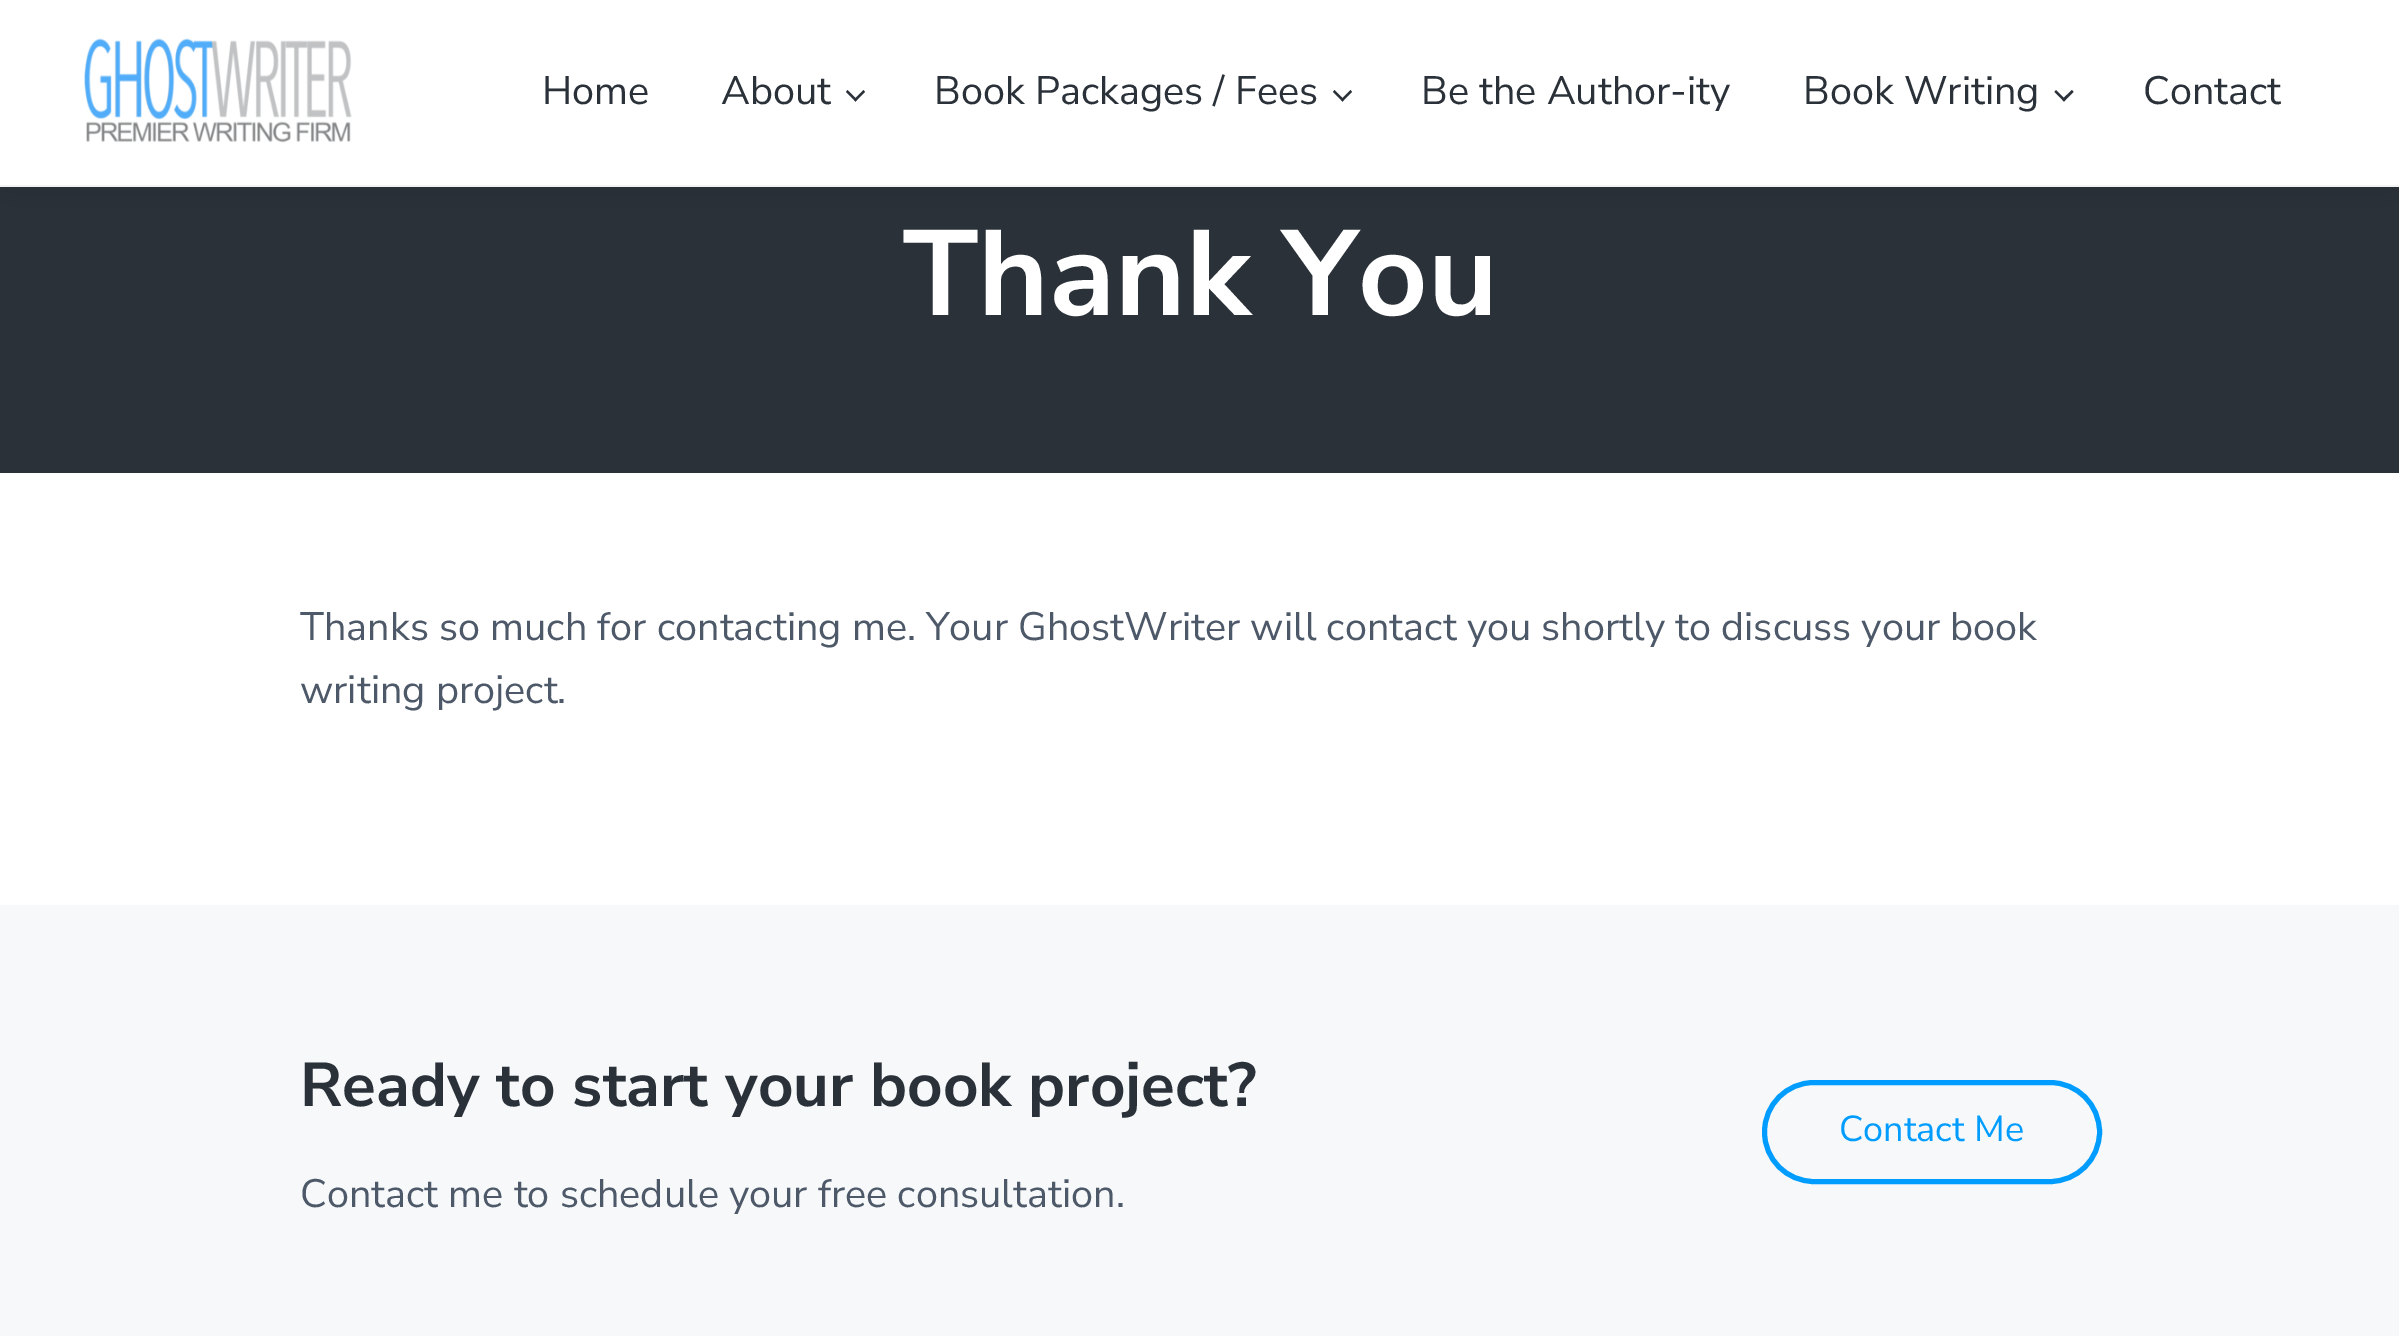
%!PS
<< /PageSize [2399 1336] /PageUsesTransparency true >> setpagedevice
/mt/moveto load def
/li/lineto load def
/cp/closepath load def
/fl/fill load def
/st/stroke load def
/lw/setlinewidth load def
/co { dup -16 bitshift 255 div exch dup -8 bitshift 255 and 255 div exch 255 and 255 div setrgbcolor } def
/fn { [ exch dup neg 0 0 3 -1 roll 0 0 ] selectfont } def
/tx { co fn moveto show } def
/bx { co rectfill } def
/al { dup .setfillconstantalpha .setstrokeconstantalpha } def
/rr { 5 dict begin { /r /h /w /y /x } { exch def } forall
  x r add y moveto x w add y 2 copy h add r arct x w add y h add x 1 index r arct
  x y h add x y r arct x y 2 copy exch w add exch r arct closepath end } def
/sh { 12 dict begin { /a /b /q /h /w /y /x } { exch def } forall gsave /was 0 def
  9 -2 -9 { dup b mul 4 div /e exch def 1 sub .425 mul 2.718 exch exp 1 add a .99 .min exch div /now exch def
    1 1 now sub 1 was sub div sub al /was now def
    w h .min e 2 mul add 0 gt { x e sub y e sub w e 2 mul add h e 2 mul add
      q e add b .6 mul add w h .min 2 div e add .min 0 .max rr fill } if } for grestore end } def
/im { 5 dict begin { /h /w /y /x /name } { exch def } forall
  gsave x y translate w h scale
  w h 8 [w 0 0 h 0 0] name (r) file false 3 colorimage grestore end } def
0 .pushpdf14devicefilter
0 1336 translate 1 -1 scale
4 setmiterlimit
0 0 2399 1336 16#FFFFFF bx
0 187 2399 286 16#2A3139 bx
16#000000 co
0 0 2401 187 0 27 .07 sh
0 0 2399 185 16#FFFFFF bx
0 185 2399 2 16#F3F3F4 bx
(media/1.raw) 84 38 268 105 im
16#2A3139 co
863.5 90 mt 865 92 li 855.5 101.5 li 854 99.5 li cp fl
847.5 90 mt 857 99.5 li 855.5 101.5 li 846 92 li cp fl
1350.5 90 mt 1352 92 li 1342.5 101.5 li 1341 99.5 li cp fl
1334.5 90 mt 1344 99.5 li 1342.5 101.5 li 1333 92 li cp fl
2072 90 mt 2073.5 92 li 2064 101.5 li 2062 99.5 li cp fl
2056 90 mt 2065.5 99.5 li 2064 101.5 li 2054.5 92 li cp fl
0 905 2399 431 16#F6F8FA bx
16#009CFF co
5 lw
1764.5 1082.5 335 99 49.5 rr st
(Home) 542 104 /NunitoSans-Regular 39.6 16#2A3139 tx
(About) 721 104 /NunitoSans-Regular 39.6 16#2A3139 tx
(Book Packages / Fees) 934 104 /NunitoSans-Regular 39.6 16#2A3139 tx
(Be the Author-ity) 1421 104 /NunitoSans-Regular 39.6 16#2A3139 tx
(Book Writing) 1803 104 /NunitoSans-Regular 39.6 16#2A3139 tx
(Contact) 2143 104 /NunitoSans-Regular 39.6 16#2A3139 tx
(Thank You) 903 315 /NunitoSans-Bold 121 16#FFFFFF tx
(Thanks so much for contacting me. Your GhostWriter will contact you shortly to discuss your book) 300 640 /NunitoSans-Regular 39.6 16#4D5968 tx
(writing project.) 300 703 /NunitoSans-Regular 39.6 16#4D5968 tx
(Ready to start your book project?) 300 1106 /NunitoSans-Bold 61.9 16#2A3139 tx
(Contact me to schedule your free consultation.) 300 1207 /NunitoSans-Regular 39.6 16#4D5968 tx
(Contact Me) 1839 1141 /NunitoSans-Regular 36 16#009CFF tx
.poppdf14devicefilter showpage
